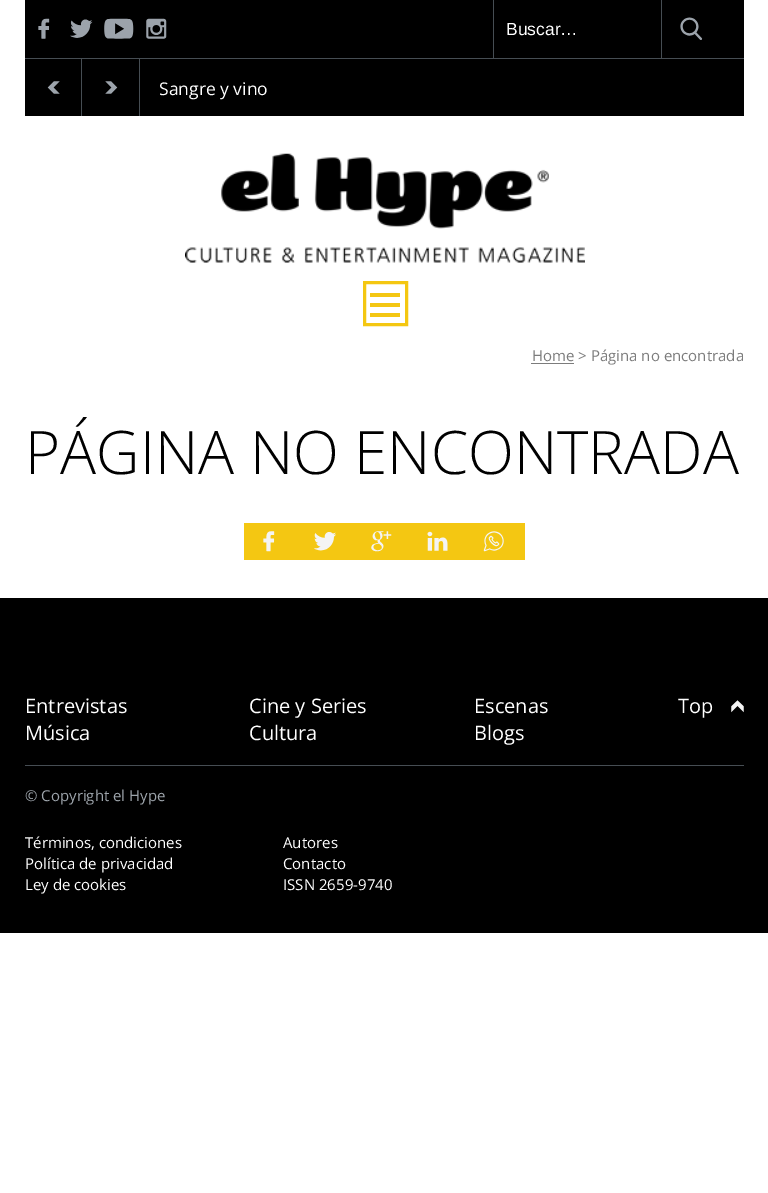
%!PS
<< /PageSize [768 1193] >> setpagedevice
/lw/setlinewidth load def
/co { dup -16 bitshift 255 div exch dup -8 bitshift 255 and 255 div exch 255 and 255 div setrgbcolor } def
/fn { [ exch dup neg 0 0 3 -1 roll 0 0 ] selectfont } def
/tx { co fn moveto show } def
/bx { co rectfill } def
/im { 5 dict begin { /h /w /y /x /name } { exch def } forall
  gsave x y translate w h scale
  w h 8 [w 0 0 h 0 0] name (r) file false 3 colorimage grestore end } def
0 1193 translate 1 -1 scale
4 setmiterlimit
0 0 768 1193 16#FFFFFF bx
25 0 719 116 16#000000 bx
493 0 1 58 16#464D53 bx
(media/1.raw) 38 18 12 21 im
(media/2.raw) 70 19 23 19 im
(media/3.raw) 104 18 30 21 im
(media/4.raw) 146 18 21 21 im
661 0 1 58 16#464D53 bx
(media/5.raw) 680 17 23 23 im
25 58 719 1 16#464D53 bx
81 59 1 57 16#464D53 bx
(media/6.raw) 47 81 13 13 im
139 59 1 57 16#464D53 bx
(media/7.raw) 105 81 13 13 im
(media/8.raw) 185 153 400 110 im
16#F4C712 co
3 lw
364.5 282.5 42 42 rectstroke
370 293 30 4 16#F4C712 bx
370 303 30 4 16#F4C712 bx
370 313 30 4 16#F4C712 bx
531 363 43 1 16#7C7C7C bx
244 523 281 37 16#F4C712 bx
(media/9.raw) 263 531 12 21 im
(media/10.raw) 314 532 22 19 im
(media/11.raw) 371 531 21 21 im
(media/12.raw) 427 531 21 20 im
(media/13.raw) 483 531 21 21 im
0 598 768 335 16#000000 bx
(media/14.raw) 731 700 13 13 im
25 765 719 1 16#464D53 bx
(Buscar…) 506 35 /LiberationSans-Regular 17.5 16#FFFFFF tx
(Sangre y vino) 159 95 /OpenSans-Regular 17.5 16#FFFFFF tx
(Home > Página no encontrada) 532 361 /OpenSans-Regular 15 16#7C7C7C tx
(PÁGINA NO ENCONTRADA) 25 474 /OpenSans-Light 60 16#000000 tx
(Entrevistas) 25 713 /OpenSans-Regular 20 16#FFFFFF tx
(Cine y Series) 249 713 /OpenSans-Regular 20 16#FFFFFF tx
(Escenas) 474 713 /OpenSans-Regular 20 16#FFFFFF tx
(Música) 25 740 /OpenSans-Regular 20 16#FFFFFF tx
(Cultura) 249 740 /OpenSans-Regular 20 16#FFFFFF tx
(Blogs) 474 740 /OpenSans-Regular 20 16#FFFFFF tx
(Top) 678 713 /OpenSans-Regular 20 16#FFFFFF tx
(© Copyright el Hype) 25 801 /OpenSans-Regular 15 16#9DA4AB tx
(Términos, condiciones) 25 848 /OpenSans-Regular 15 16#FFFFFF tx
(Autores) 283 848 /OpenSans-Regular 15 16#FFFFFF tx
(Política de privacidad) 25 869 /OpenSans-Regular 15 16#FFFFFF tx
(Contacto) 283 869 /OpenSans-Regular 15 16#FFFFFF tx
(Ley de cookies) 25 890 /OpenSans-Regular 15 16#FFFFFF tx
(ISSN 2659-9740) 283 890 /OpenSans-Regular 15 16#FFFFFF tx
showpage
